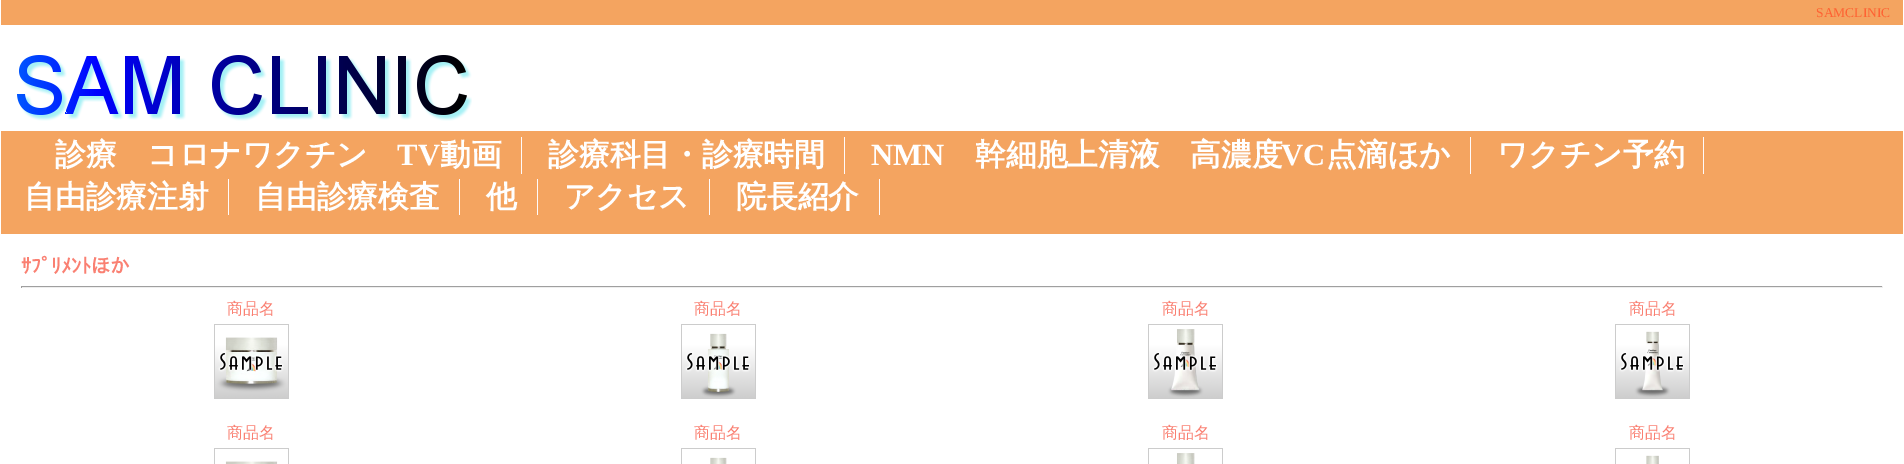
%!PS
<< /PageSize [1904 464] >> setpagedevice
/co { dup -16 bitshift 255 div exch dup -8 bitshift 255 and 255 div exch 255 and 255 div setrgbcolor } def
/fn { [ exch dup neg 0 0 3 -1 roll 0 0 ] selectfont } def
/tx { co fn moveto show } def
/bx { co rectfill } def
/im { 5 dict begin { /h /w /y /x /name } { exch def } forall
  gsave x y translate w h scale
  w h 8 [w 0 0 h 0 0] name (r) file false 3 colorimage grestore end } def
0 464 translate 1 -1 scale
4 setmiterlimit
0 0 1904 464 16#FFFFFF bx
1 0 1902 25 16#F4A460 bx
(media/1.raw) 17 55 455 66 im
1 131 1902 103 16#F4A460 bx
521 137 1 37 16#FFFAFA bx
844 137 1 37 16#FFFAFA bx
1470 137 1 37 16#FFFAFA bx
1703 137 1 37 16#FFFAFA bx
228 179 1 36 16#FFFAFA bx
459 179 1 36 16#FFFAFA bx
537 179 1 36 16#FFFAFA bx
709 179 1 36 16#FFFAFA bx
879 179 1 36 16#FFFAFA bx
21 286 1862 1 16#9F9F9F bx
1882 286 1 2 16#EEEEEE bx
21 287 1862 1 16#EEEEEE bx
21 286 1 2 16#9F9F9F bx
(media/2.raw) 214 324 75 75 im
(media/3.raw) 681 324 75 75 im
(media/4.raw) 1148 324 75 75 im
(media/5.raw) 1615 324 75 75 im
(media/6.raw) 214 448 75 16 im
(media/7.raw) 681 448 75 16 im
(media/8.raw) 1148 448 75 16 im
(media/9.raw) 1615 448 75 16 im
(SAMCLINIC) 1816 17 /LiberationSerif-Regular 13.5 16#FF6233 tx
(診療　コロナワクチン) 55 165 /WenQuanYiZenHei-Bold 30.75 16#FFFFFF tx
(TV) 397 165 /LiberationSerif-Bold 30.75 16#FFFFFF tx
(動画) 440 165 /WenQuanYiZenHei-Bold 30.75 16#FFFFFF tx
(診療科目・診療時間) 548 165 /WenQuanYiZenHei-Bold 30.75 16#FFFFFF tx
(NMN) 871 165 /LiberationSerif-Bold 30.75 16#FFFFFF tx
(幹細胞上清液　高濃度) 975 165 /WenQuanYiZenHei-Bold 30.75 16#FFFFFF tx
(VC) 1281 165 /LiberationSerif-Bold 30.75 16#FFFFFF tx
(点滴ほか) 1326 165 /WenQuanYiZenHei-Bold 30.75 16#FFFFFF tx
(ワクチン予約) 1497 165 /WenQuanYiZenHei-Bold 30.75 16#FFFFFF tx
(自由診療注射) 24 207 /WenQuanYiZenHei-Bold 30.75 16#FFFFFF tx
(自由診療検査) 255 207 /WenQuanYiZenHei-Bold 30.75 16#FFFFFF tx
(他) 486 207 /WenQuanYiZenHei-Bold 30.75 16#FFFFFF tx
(アクセス) 564 207 /WenQuanYiZenHei-Bold 30.75 16#FFFFFF tx
(院長紹介) 736 207 /WenQuanYiZenHei-Bold 30.75 16#FFFFFF tx
(ｻﾌﾟﾘﾒﾝﾄほか) 21 273 /IPAPGothic-Bold 20 16#FA8072 tx
(商品名) 227 314 /WenQuanYiZenHei-Medium 16 16#FA8072 tx
(商品名) 694 314 /WenQuanYiZenHei-Medium 16 16#FA8072 tx
(商品名) 1162 314 /WenQuanYiZenHei-Medium 16 16#FA8072 tx
(商品名) 1629 314 /WenQuanYiZenHei-Medium 16 16#FA8072 tx
(商品名) 227 438 /WenQuanYiZenHei-Medium 16 16#FA8072 tx
(商品名) 694 438 /WenQuanYiZenHei-Medium 16 16#FA8072 tx
(商品名) 1162 438 /WenQuanYiZenHei-Medium 16 16#FA8072 tx
(商品名) 1629 438 /WenQuanYiZenHei-Medium 16 16#FA8072 tx
showpage
